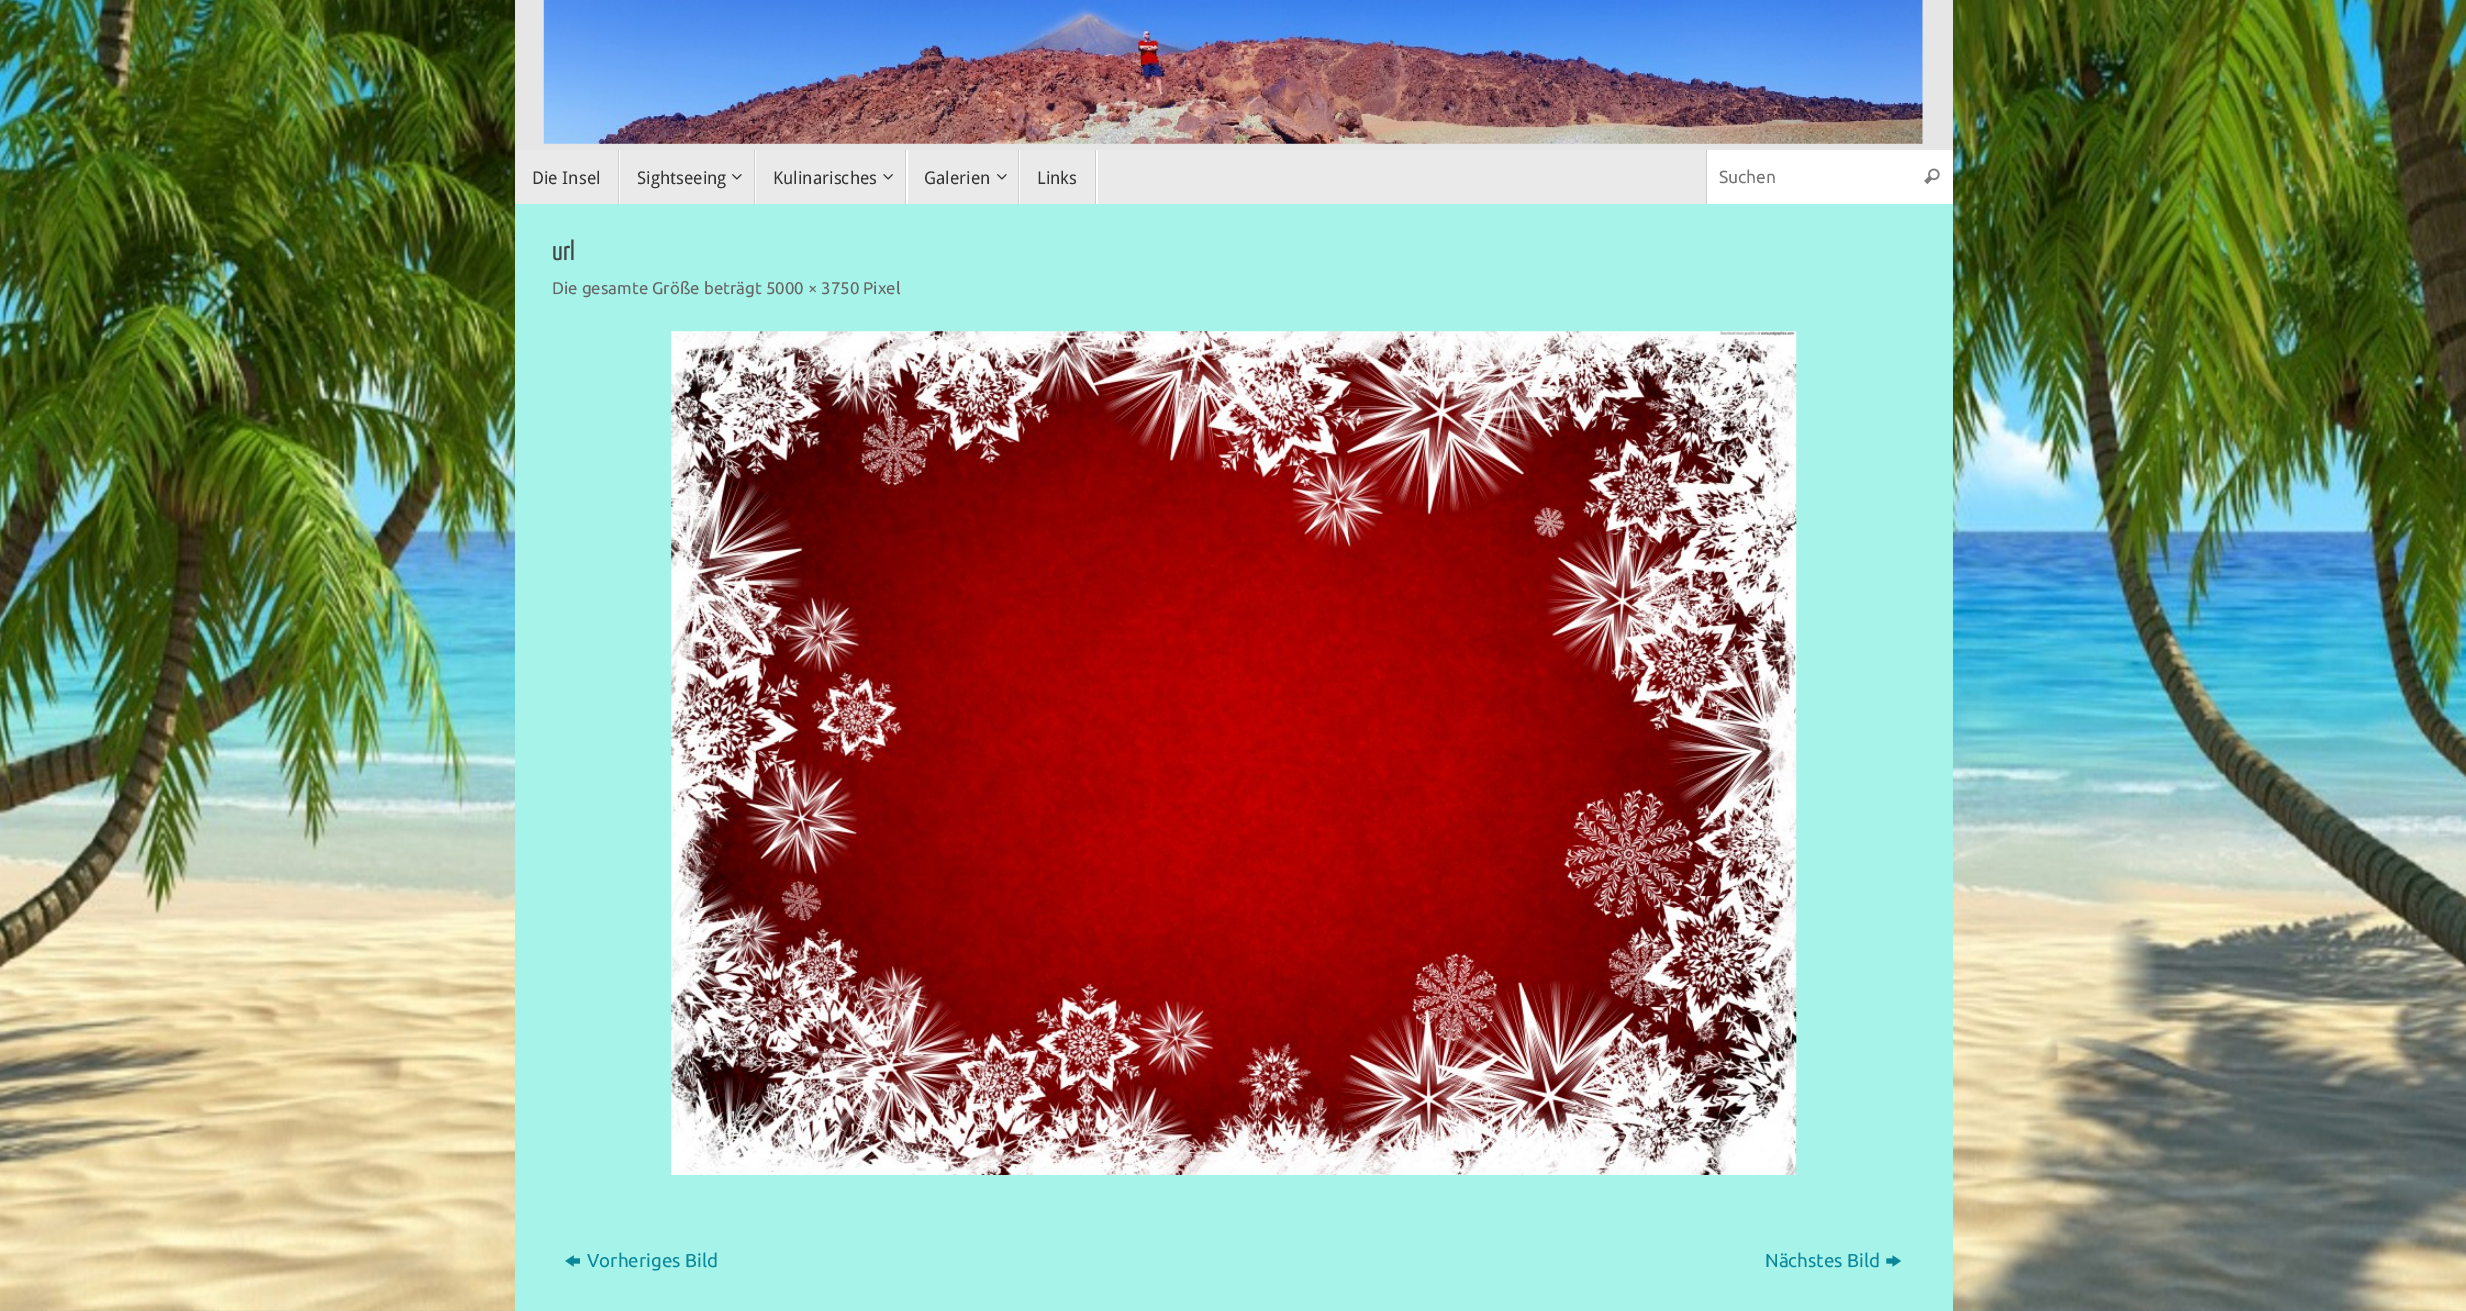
%!PS
<< /PageSize [2466 1311] >> setpagedevice
/mt/moveto load def
/li/lineto load def
/cp/closepath load def
/fl/fill load def
/co { dup -16 bitshift 255 div exch dup -8 bitshift 255 and 255 div exch 255 and 255 div setrgbcolor } def
/fn { [ exch dup neg 0 0 3 -1 roll 0 0 ] selectfont } def
/tx { co fn moveto show } def
/bx { co rectfill } def
/im { 5 dict begin { /h /w /y /x /name } { exch def } forall
  gsave x y translate w h scale
  w h 8 [w 0 0 h 0 0] name (r) file false 3 colorimage grestore end } def
0 1311 translate 1 -1 scale
4 setmiterlimit
0 0 2466 1311 16#FFFFFF bx
(media/1.raw) 0 0 2466 1311 im
515 0 1438 150 16#E6E6E6 bx
(media/2.raw) 543 0 1380 144 im
515 150 1191 54 16#EAEAEA bx
16#FFFFFF co
516 204 mt 620 204 li 620 150 li 619 150 li 619 204 li cp fl
618 150 1 54 16#CCCCCC bx
16#FFFFFF co
620 204 mt 756 204 li 756 150 li 755 150 li 755 204 li cp fl
754 150 1 54 16#CCCCCC bx
(media/3.raw) 732 174 10 6 im
16#FFFFFF co
756 204 mt 908 204 li 908 150 li 906 150 li 906 204 li cp fl
905 150 1 54 16#CCCCCC bx
(media/4.raw) 883 174 10 6 im
16#FFFFFF co
908 204 mt 1020 204 li 1020 150 li 1019 150 li 1019 204 li cp fl
1018 150 1 54 16#CCCCCC bx
(media/3.raw) 997 174 10 6 im
16#FFFFFF co
1020 204 mt 1098 204 li 1098 150 li 1096 150 li 1096 204 li cp fl
1095 150 1 54 16#CCCCCC bx
1707 150 246 54 16#FFFFFF bx
1706 150 1 54 16#CCCCCC bx
(media/5.raw) 1924 168 16 16 im
515 204 1438 1107 16#A5F3E9 bx
(media/6.raw) 671 331 1126 844 im
(media/7.raw) 565 1255 15 12 im
(media/8.raw) 1886 1255 15 12 im
(Die Insel) 532 184 /DroidSans-Regular 17.5 16#333333 tx
(Sightseeing) 637 184 /DroidSans-Regular 17.5 16#333333 tx
(Kulinarisches) 773 184 /DroidSans-Regular 17.5 16#333333 tx
(Galerien) 924 184 /DroidSans-Regular 17.5 16#333333 tx
(Links) 1037 184 /DroidSans-Regular 17.5 16#333333 tx
(Suchen) 1719 183 /Ubuntu-Regular 17.5 16#757575 tx
(url) 552 260 /YanoneKaffeesatz-Regular 28 16#444444 tx
(Die gesamte Größe beträgt 5000 × 3750 Pixel) 552 294 /Ubuntu-Regular 16.9 16#666666 tx
(Vorheriges Bild) 587 1267 /Ubuntu-Regular 18.75 16#0B8799 tx
(Nächstes Bild) 1765 1267 /Ubuntu-Regular 18.75 16#0B8799 tx
showpage
